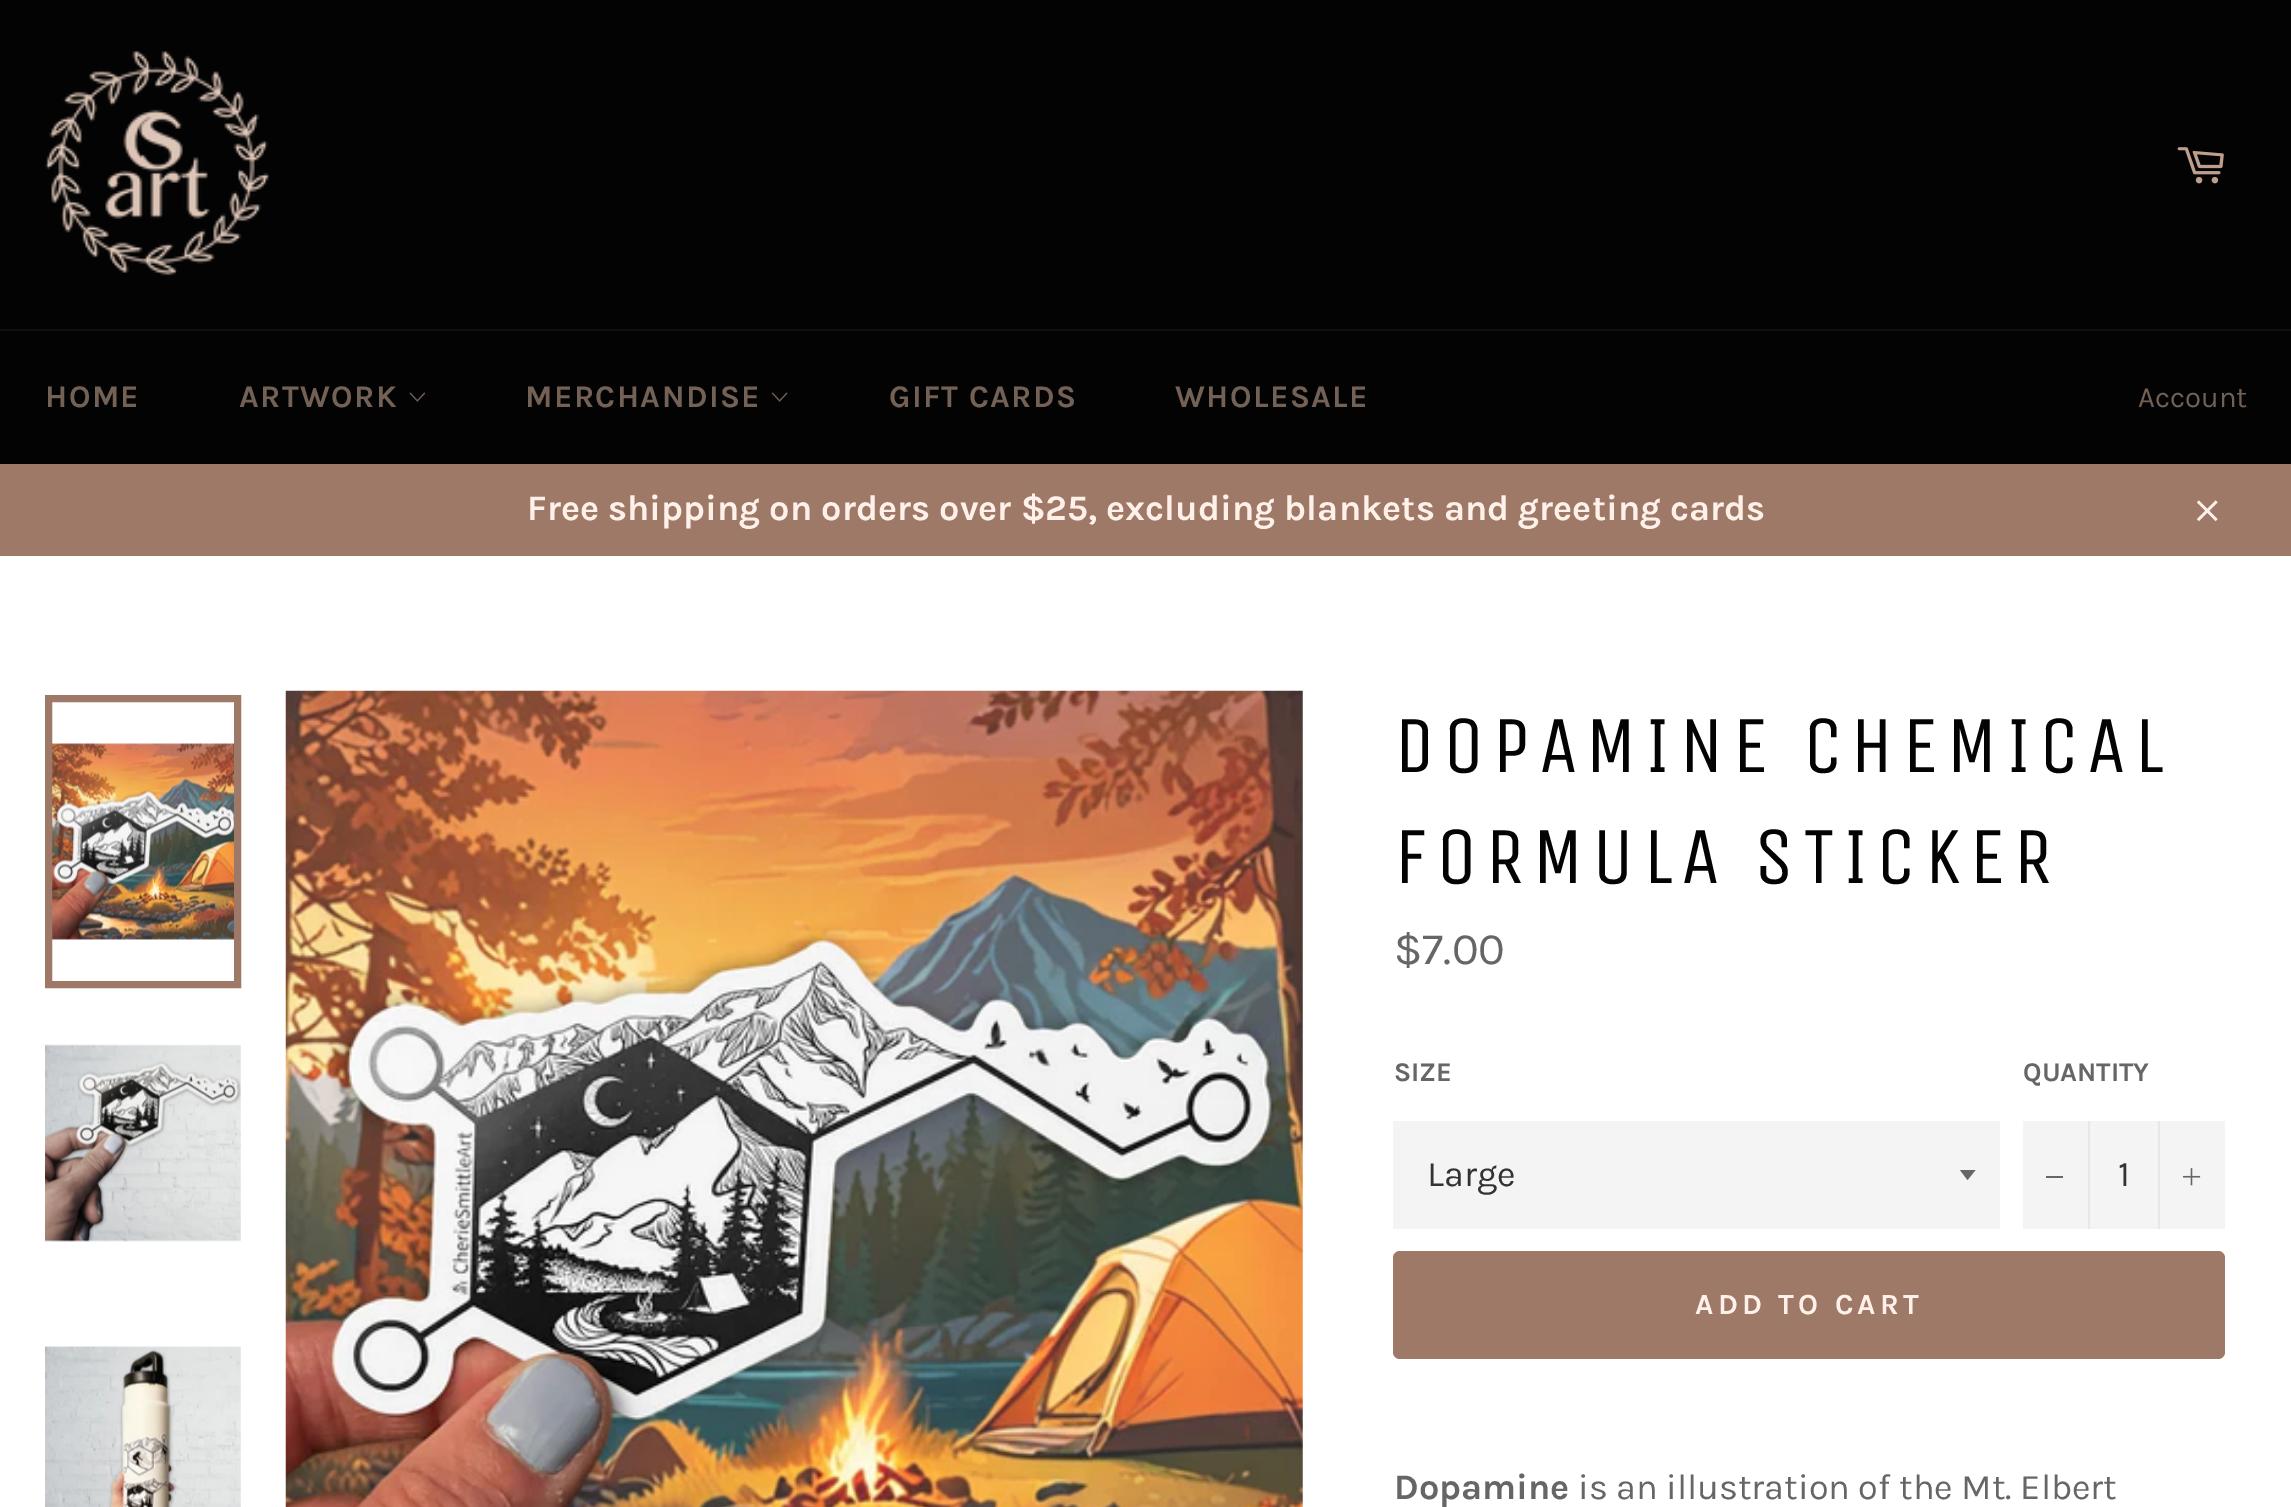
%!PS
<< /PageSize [2291 1507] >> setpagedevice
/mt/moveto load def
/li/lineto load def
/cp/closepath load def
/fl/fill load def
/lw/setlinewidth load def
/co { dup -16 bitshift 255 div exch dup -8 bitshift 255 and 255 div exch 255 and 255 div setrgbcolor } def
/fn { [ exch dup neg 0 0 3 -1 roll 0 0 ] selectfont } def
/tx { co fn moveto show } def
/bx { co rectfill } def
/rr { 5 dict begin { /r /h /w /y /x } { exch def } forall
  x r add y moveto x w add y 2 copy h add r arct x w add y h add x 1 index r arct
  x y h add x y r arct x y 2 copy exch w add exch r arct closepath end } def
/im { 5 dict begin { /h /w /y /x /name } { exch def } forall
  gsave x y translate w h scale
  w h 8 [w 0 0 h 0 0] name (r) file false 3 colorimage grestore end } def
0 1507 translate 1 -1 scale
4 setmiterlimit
0 0 2291 1507 16#FFFFFF bx
0 0 2291 329 16#030303 bx
(media/1.raw) 45 50 225 226 im
(media/2.raw) 2177 147 47 37 im
0 331 2291 133 16#030303 bx
0 329 2291 2 16#101010 bx
(media/3.raw) 409 392 17 10 im
(media/4.raw) 771 392 17 10 im
0 464 2291 92 16#9E7967 bx
(media/5.raw) 2196 500 22 22 im
(media/6.raw) 52 743 182 197 im
7 lw
48.5 698.5 189 286 rectstroke
(media/7.raw) 45 1044 196 198 im
(media/8.raw) 45 1346 196 161 im
(media/9.raw) 285 690 1018 817 im
1393 1121 607 108 16#F4F4F4 bx
16#666666 co
1960 1170 mt 1967.5 1180 li 1975.5 1170 li cp fl
2023 1121 202 108 16#F4F4F4 bx
2088 1121 2 108 16#E7E7E7 bx
2046 1176 17 2 16#666666 bx
2158 1121 2 108 16#E7E7E7 bx
(media/10.raw) 2183 1168 18 18 im
16#9E7967 co
1393 1251 832 108 7 rr fl
/Karla-Bold 31.5 fn
16#736155 co
45 407 mt 1.4 0 (HOME) ashow
239 407 mt 1.4 0 (ARTWORK) ashow
525 407 mt 1.4 0 (MERCHANDISE) ashow
889 407 mt 1.4 0 (GIFT CARDS) ashow
1175 407 mt 1.4 0 (WHOLESALE) ashow
(Account) 2138 407 /Karla-Regular 29.25 16#736155 tx
(Free shipping on orders over $25, excluding blankets and greeting cards) 527 520 /Karla-Bold 36 16#FFF1E9 tx
/UnicaOne-Regular 81 fn
16#030303 co
1394 772 mt 8.1 0 (DOPAMINE CHEMICAL) ashow
1394 883 mt 8.1 0 (FORMULA STICKER) ashow
($7.00) 1394 964 /Karla-Regular 45 16#666666 tx
(SIZE) 1394 1081 /Karla-Bold 27 16#666666 tx
(Large) 1427 1186 /Karla-Regular 36 16#333333 tx
(QUANTITY) 2023 1081 /Karla-Bold 27 16#666666 tx
(1) 2118 1186 /Karla-Regular 36 16#333333 tx
/Karla-Bold 29.25 fn
16#FFF1E9 co
1695 1314 mt 4.4 0 (ADD TO CART) ashow
(Dopamine) 1394 1499 /Karla-Bold 36 16#666666 tx
(is an illustration of the Mt. Elbert) 1578 1499 /Karla-Regular 36 16#666666 tx
showpage
